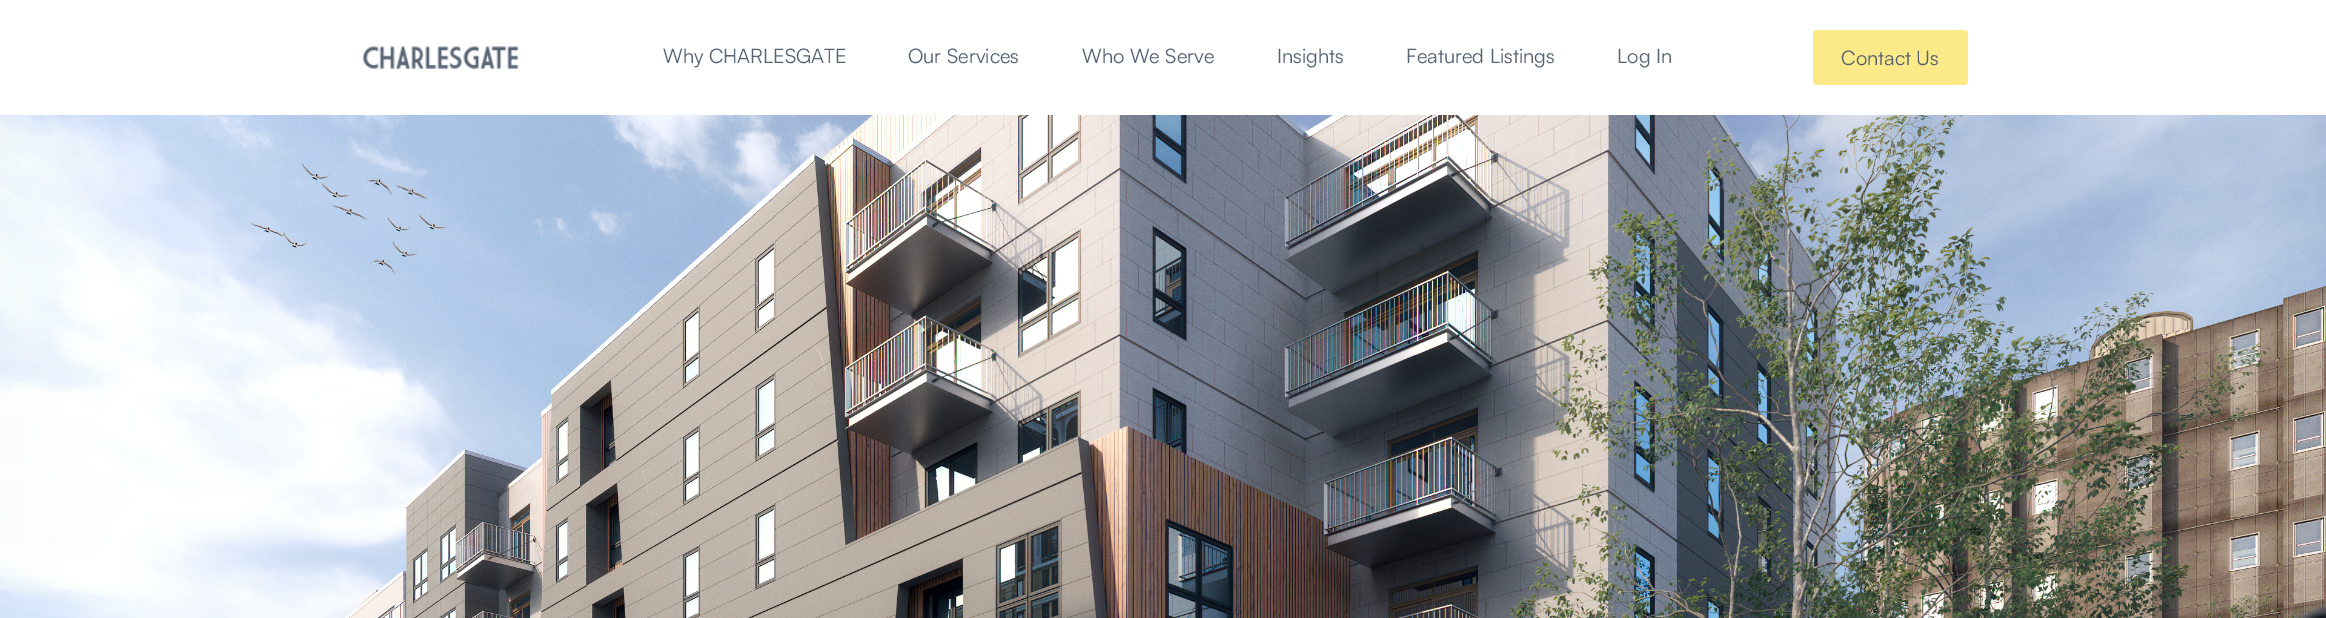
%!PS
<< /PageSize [2326 618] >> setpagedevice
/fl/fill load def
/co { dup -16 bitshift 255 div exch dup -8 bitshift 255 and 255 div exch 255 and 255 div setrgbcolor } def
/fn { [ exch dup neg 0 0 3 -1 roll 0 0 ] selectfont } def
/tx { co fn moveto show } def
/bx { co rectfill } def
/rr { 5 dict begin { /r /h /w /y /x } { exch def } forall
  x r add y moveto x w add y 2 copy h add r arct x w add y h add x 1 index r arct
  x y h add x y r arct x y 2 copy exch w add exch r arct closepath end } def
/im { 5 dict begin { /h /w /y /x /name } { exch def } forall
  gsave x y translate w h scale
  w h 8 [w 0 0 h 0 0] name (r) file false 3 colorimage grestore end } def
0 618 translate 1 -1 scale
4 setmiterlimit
0 0 2326 618 16#FFFFFF bx
(media/1.raw) 362 46 157 23 im
16#FBEA87 co
1813 30 155 55 4 rr fl
(media/2.raw) 0 115 2326 503 im
(Why CHARLESGATE) 663 63 /Satoshi-Regular 20 16#566374 tx
(Our Services) 908 63 /Satoshi-Regular 20 16#566374 tx
(Who We Serve) 1082 63 /Satoshi-Regular 20 16#566374 tx
(Insights) 1277 63 /Satoshi-Regular 20 16#566374 tx
(Featured Listings) 1406 63 /Satoshi-Regular 20 16#566374 tx
(Log In) 1617 63 /Satoshi-Regular 20 16#566374 tx
(Contact Us) 1841 65 /Satoshi-Regular 20 16#566374 tx
showpage
